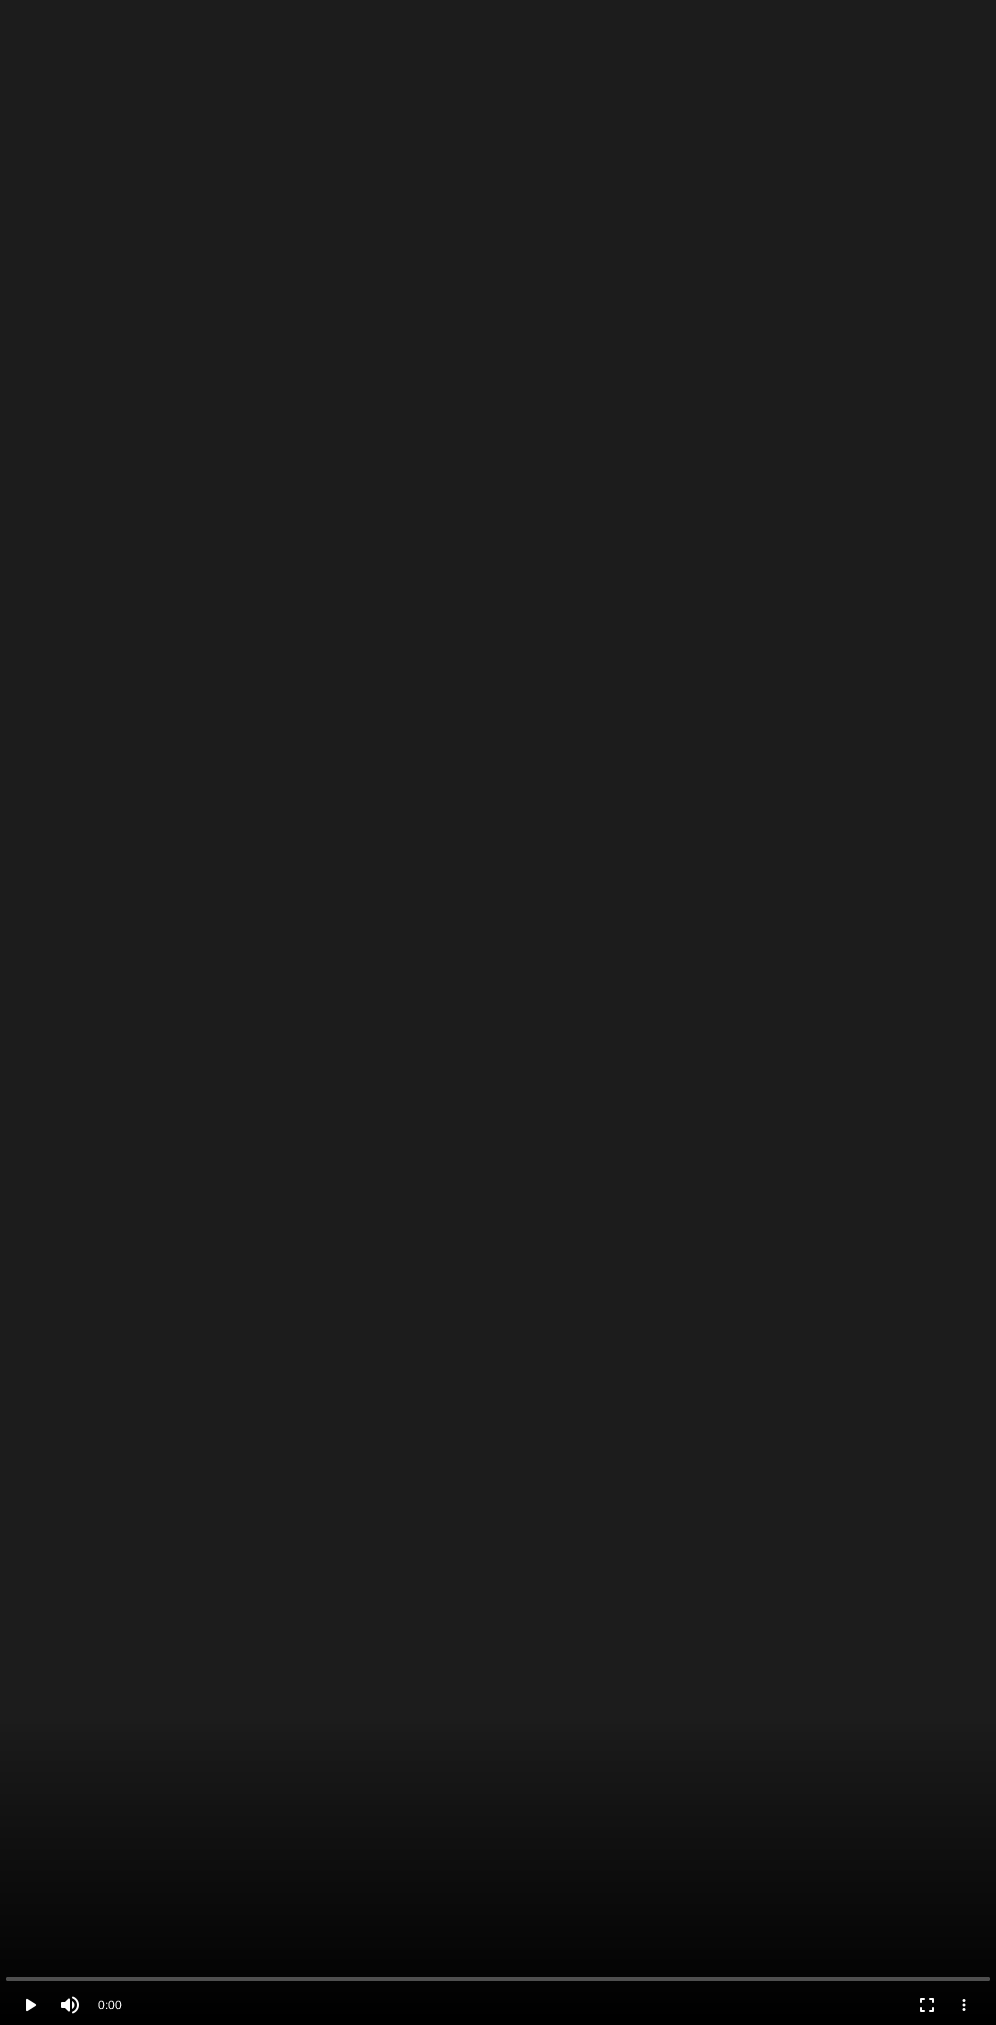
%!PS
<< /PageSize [996 2025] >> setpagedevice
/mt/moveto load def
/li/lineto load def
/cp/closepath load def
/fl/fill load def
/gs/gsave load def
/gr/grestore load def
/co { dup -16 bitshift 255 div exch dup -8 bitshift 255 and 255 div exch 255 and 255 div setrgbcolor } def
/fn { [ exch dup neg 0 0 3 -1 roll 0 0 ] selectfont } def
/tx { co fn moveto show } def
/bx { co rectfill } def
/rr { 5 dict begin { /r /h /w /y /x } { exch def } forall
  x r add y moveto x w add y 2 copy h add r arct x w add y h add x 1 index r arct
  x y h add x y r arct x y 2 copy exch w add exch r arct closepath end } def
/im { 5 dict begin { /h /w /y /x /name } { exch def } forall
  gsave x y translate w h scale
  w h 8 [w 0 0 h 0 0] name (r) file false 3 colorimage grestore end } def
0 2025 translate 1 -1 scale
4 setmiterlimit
0 0 996 2025 16#FFFFFF bx
gs 0 0 mt 996 0 li 996 2025 li 0 2025 li cp clip newpath
<< /ShadingType 2 /ColorSpace /DeviceRGB /Coords [498 2025 498 0] /Extend [true true] /Function << /FunctionType 3 /Domain [0 1] /Functions [<< /FunctionType 2 /Domain [0 1] /C0 [0 0 0] /C1 [.11 .11 .11] /N 1 >> << /FunctionType 2 /Domain [0 1] /C0 [.11 .11 .11] /C1 [.11 .11 .11] /N 1 >>] /Bounds [.15] /Encode [0 1 0 1] >> >> shfill gr
16#4F4F4F co
6 1977 984 4 2 rr fl
(media/1.raw) 26 1998 11 14 im
(media/2.raw) 61 1996 18 18 im
(media/3.raw) 920 1998 14 14 im
(media/4.raw) 962 1999 4 12 im
(0:00) 98 2009 /LiberationSans-Regular 12 16#FFFFFF tx
showpage
